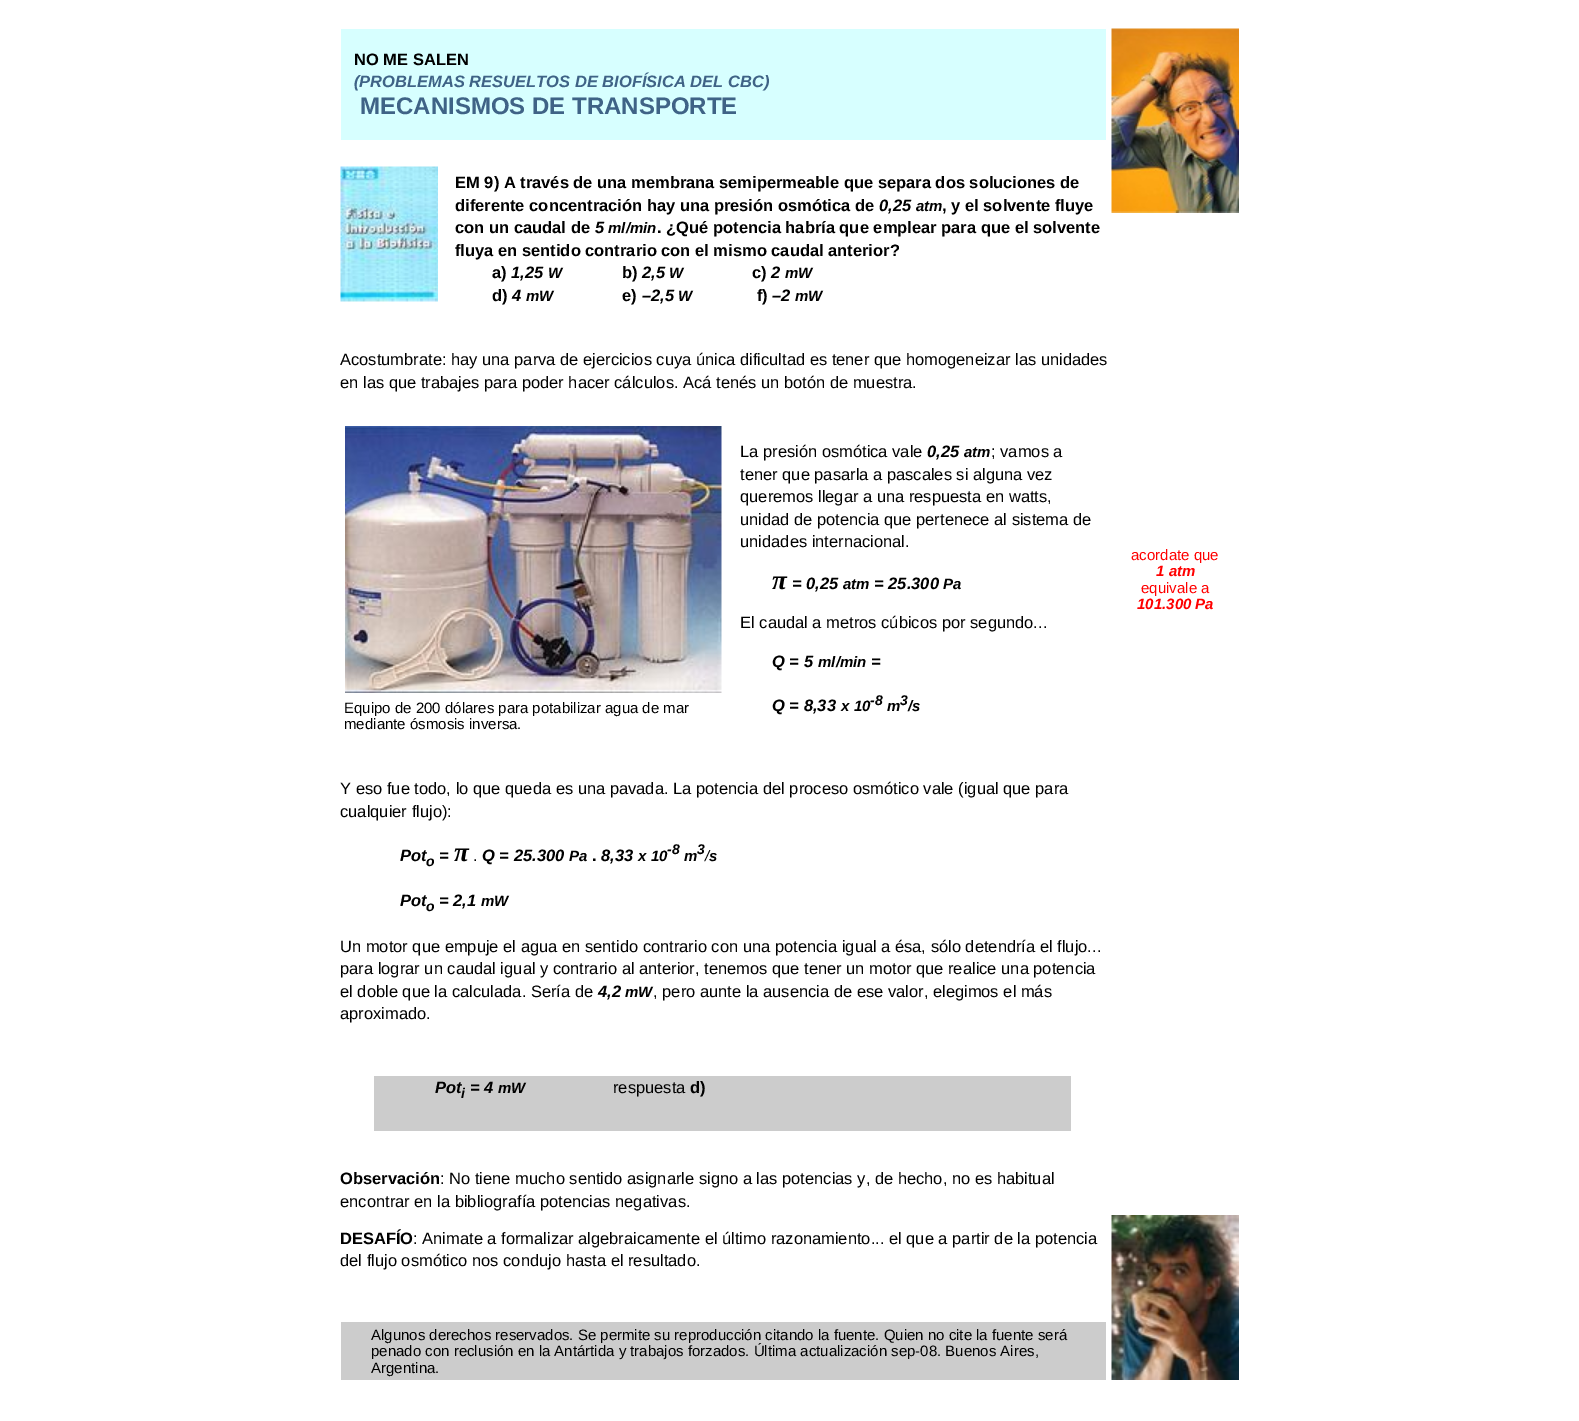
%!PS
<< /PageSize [1579 1421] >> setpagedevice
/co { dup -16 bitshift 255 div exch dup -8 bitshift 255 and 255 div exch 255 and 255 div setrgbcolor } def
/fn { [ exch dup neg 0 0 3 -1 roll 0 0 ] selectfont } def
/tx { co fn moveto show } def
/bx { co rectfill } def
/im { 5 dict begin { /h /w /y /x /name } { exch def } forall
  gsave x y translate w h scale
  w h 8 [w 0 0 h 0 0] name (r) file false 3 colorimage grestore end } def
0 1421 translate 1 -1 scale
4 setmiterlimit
0 0 1579 1421 16#FFFFFF bx
341 29 765 111 16#D7FFFF bx
(media/1.raw) 1111 28 128 185 im
(media/2.raw) 340 166 98 136 im
(media/3.raw) 345 426 377 267 im
374 1076 697 55 16#CCCCCC bx
(media/4.raw) 1111 1215 128 165 im
341 1322 765 58 16#CCCCCC bx
(NO ME SALEN) 354 65 /LiberationSans-Bold 16.5 16#000000 tx
(\(PROBLEMAS RESUELTOS DE BIOFÍSICA DEL CBC\)) 354 87 /LiberationSans-BoldItalic 16.5 16#3F6386 tx
(MECANISMOS DE TRANSPORTE) 360 114 /LiberationSans-Bold 24 16#3F6386 tx
(EM 9\) A través de una membrana semipermeable que separa dos soluciones de) 455 188 /LiberationSans-Bold 16.5 16#000000 tx
(diferente concentración hay una presión osmótica de) 455 211 /LiberationSans-Bold 16.5 16#000000 tx
(0,25) 879 211 /LiberationSans-BoldItalic 16.5 16#000000 tx
(atm) 916 211 /LiberationSans-BoldItalic 15 16#000000 tx
(, y el solvente fluye) 942 211 /LiberationSans-Bold 16.5 16#000000 tx
(con un caudal de) 455 233 /LiberationSans-Bold 16.5 16#000000 tx
(5) 595 233 /LiberationSans-BoldItalic 16.5 16#000000 tx
(ml/min) 608 233 /LiberationSans-BoldItalic 15 16#000000 tx
(. ¿Qué potencia habría que emplear para que el solvente) 657 233 /LiberationSans-Bold 16.5 16#000000 tx
(fluya en sentido contrario con el mismo caudal anterior?) 455 256 /LiberationSans-Bold 16.5 16#000000 tx
(a\)) 492 278 /LiberationSans-Bold 16.5 16#000000 tx
(1,25) 511 278 /LiberationSans-BoldItalic 16.5 16#000000 tx
(W) 548 278 /LiberationSans-BoldItalic 15 16#000000 tx
(b\)) 622 278 /LiberationSans-Bold 16.5 16#000000 tx
(2,5) 642 278 /LiberationSans-BoldItalic 16.5 16#000000 tx
(W) 669 278 /LiberationSans-BoldItalic 15 16#000000 tx
(c\)) 752 278 /LiberationSans-Bold 16.5 16#000000 tx
(2) 771 278 /LiberationSans-BoldItalic 16.5 16#000000 tx
(mW) 785 278 /LiberationSans-BoldItalic 15 16#000000 tx
(d\)) 492 301 /LiberationSans-Bold 16.5 16#000000 tx
(4) 512 301 /LiberationSans-BoldItalic 16.5 16#000000 tx
(mW) 526 301 /LiberationSans-BoldItalic 15 16#000000 tx
(e\)) 622 301 /LiberationSans-Bold 16.5 16#000000 tx
(–2,5) 642 301 /LiberationSans-BoldItalic 16.5 16#000000 tx
(W) 678 301 /LiberationSans-BoldItalic 15 16#000000 tx
(f\)) 757 301 /LiberationSans-Bold 16.5 16#000000 tx
(–2) 772 301 /LiberationSans-BoldItalic 16.5 16#000000 tx
(mW) 795 301 /LiberationSans-BoldItalic 15 16#000000 tx
(Acostumbrate: hay una parva de ejercicios cuya única dificultad es tener que homogeneizar las unidades) 340 365 /LiberationSans-Regular 16.5 16#000000 tx
(en las que trabajes para poder hacer cálculos. Acá tenés un botón de muestra.) 340 388 /LiberationSans-Regular 16.5 16#000000 tx
(Equipo de 200 dólares para potabilizar agua de mar) 344 713 /LiberationSans-Regular 15 16#000000 tx
(mediante ósmosis inversa.) 344 729 /LiberationSans-Regular 15 16#000000 tx
(La presión osmótica vale) 740 457 /LiberationSans-Regular 16.5 16#000000 tx
(0,25) 927 457 /LiberationSans-BoldItalic 16.5 16#000000 tx
(atm) 964 457 /LiberationSans-BoldItalic 15 16#000000 tx
(; vamos a) 991 457 /LiberationSans-Regular 16.5 16#000000 tx
(tener que pasarla a pascales si alguna vez) 740 480 /LiberationSans-Regular 16.5 16#000000 tx
(queremos llegar a una respuesta en watts,) 740 502 /LiberationSans-Regular 16.5 16#000000 tx
(unidad de potencia que pertenece al sistema de) 740 525 /LiberationSans-Regular 16.5 16#000000 tx
(unidades internacional.) 740 547 /LiberationSans-Regular 16.5 16#000000 tx
(π) 772 589 /LiberationSerif-BoldItalic 27 16#000000 tx
(= 0,25) 792 589 /LiberationSans-BoldItalic 16.5 16#000000 tx
(atm) 843 589 /LiberationSans-BoldItalic 15 16#000000 tx
(= 25.300) 874 589 /LiberationSans-BoldItalic 16.5 16#000000 tx
(Pa) 943 589 /LiberationSans-BoldItalic 15 16#000000 tx
(El caudal a metros cúbicos por segundo...) 740 628 /LiberationSans-Regular 16.5 16#000000 tx
(Q = 5) 772 667 /LiberationSans-BoldItalic 16.5 16#000000 tx
(ml/min) 818 667 /LiberationSans-BoldItalic 15 16#000000 tx
(=) 871 667 /LiberationSans-BoldItalic 16.5 16#000000 tx
(Q = 8,33) 772 711 /LiberationSans-BoldItalic 16.5 16#000000 tx
(x 10) 841 711 /LiberationSans-BoldItalic 15 16#000000 tx
(-8) 870 705 /LiberationSans-BoldItalic 14 16#000000 tx
(m) 887 711 /LiberationSans-BoldItalic 15 16#000000 tx
(3) 900 705 /LiberationSans-BoldItalic 14 16#000000 tx
(/s) 908 711 /LiberationSans-BoldItalic 15 16#000000 tx
(acordate que) 1131 560 /LiberationSans-Regular 15 16#FF0000 tx
(1 atm) 1156 576 /LiberationSans-BoldItalic 15 16#FF0000 tx
(equivale a) 1141 593 /LiberationSans-Regular 15 16#FF0000 tx
(101.300 Pa) 1137 609 /LiberationSans-BoldItalic 15 16#FF0000 tx
(Y eso fue todo, lo que queda es una pavada. La potencia del proceso osmótico vale \(igual que para) 340 794 /LiberationSans-Regular 16.5 16#000000 tx
(cualquier flujo\):) 340 817 /LiberationSans-Regular 16.5 16#000000 tx
(Pot) 400 861 /LiberationSans-BoldItalic 16.5 16#000000 tx
(o) 426 866 /LiberationSans-BoldItalic 14 16#000000 tx
(=) 439 861 /LiberationSans-BoldItalic 16.5 16#000000 tx
(π) 454 861 /LiberationSerif-BoldItalic 27 16#000000 tx
(.) 473 861 /LiberationSans-Regular 16.5 16#000000 tx
(Q = 25.300) 482 861 /LiberationSans-BoldItalic 16.5 16#000000 tx
(Pa) 569 861 /LiberationSans-BoldItalic 15 16#000000 tx
(.) 592 861 /LiberationSans-Bold 16.5 16#000000 tx
(8,33) 601 861 /LiberationSans-BoldItalic 16.5 16#000000 tx
(x 10) 638 861 /LiberationSans-BoldItalic 15 16#000000 tx
(-8) 667 854 /LiberationSans-BoldItalic 14 16#000000 tx
(m) 684 861 /LiberationSans-BoldItalic 15 16#000000 tx
(3) 697 854 /LiberationSans-BoldItalic 14 16#000000 tx
(/) 705 861 /LiberationSans-Italic 15 16#000000 tx
(s) 709 861 /LiberationSans-BoldItalic 15 16#000000 tx
(Pot) 400 906 /LiberationSans-BoldItalic 16.5 16#000000 tx
(= 2,1) 439 906 /LiberationSans-BoldItalic 16.5 16#000000 tx
(mW) 481 906 /LiberationSans-BoldItalic 15 16#000000 tx
(o) 426 911 /LiberationSans-BoldItalic 14 16#000000 tx
(Un motor que empuje el agua en sentido contrario con una potencia igual a ésa, sólo detendría el flujo...) 340 952 /LiberationSans-Regular 16.5 16#000000 tx
(para lograr un caudal igual y contrario al anterior, tenemos que tener un motor que realice una potencia) 340 974 /LiberationSans-Regular 16.5 16#000000 tx
(el doble que la calculada. Sería de) 340 997 /LiberationSans-Regular 16.5 16#000000 tx
(4,2) 598 997 /LiberationSans-BoldItalic 16.5 16#000000 tx
(mW) 625 997 /LiberationSans-BoldItalic 15 16#000000 tx
(, pero aunte la ausencia de ese valor, elegimos el más) 653 997 /LiberationSans-Regular 16.5 16#000000 tx
(aproximado.) 340 1019 /LiberationSans-Regular 16.5 16#000000 tx
(Pot) 435 1093 /LiberationSans-BoldItalic 16.5 16#000000 tx
(i) 461 1098 /LiberationSans-BoldItalic 14 16#000000 tx
(= 4) 470 1093 /LiberationSans-BoldItalic 16.5 16#000000 tx
(mW) 498 1093 /LiberationSans-BoldItalic 15 16#000000 tx
(respuesta) 613 1093 /LiberationSans-Regular 16.5 16#000000 tx
(d\)) 690 1093 /LiberationSans-Bold 16.5 16#000000 tx
(Observación) 340 1184 /LiberationSans-Bold 16.5 16#000000 tx
(: No tiene mucho sentido asignarle signo a las potencias y, de hecho, no es habitual) 440 1184 /LiberationSans-Regular 16.5 16#000000 tx
(encontrar en la bibliografía potencias negativas.) 340 1207 /LiberationSans-Regular 16.5 16#000000 tx
(DESAFÍO) 340 1244 /LiberationSans-Bold 16.5 16#000000 tx
(: Animate a formalizar algebraicamente el último razonamiento... el que a partir de la potencia) 413 1244 /LiberationSans-Regular 16.5 16#000000 tx
(del flujo osmótico nos condujo hasta el resultado.) 340 1266 /LiberationSans-Regular 16.5 16#000000 tx
(Algunos derechos reservados. Se permite su reproducción citando la fuente. Quien no cite la fuente será) 371 1340 /LiberationSans-Regular 15 16#000000 tx
(penado con reclusión en la Antártida y trabajos forzados. Última actualización sep-08. Buenos Aires,) 371 1356 /LiberationSans-Regular 15 16#000000 tx
(Argentina.) 371 1373 /LiberationSans-Regular 15 16#000000 tx
showpage
